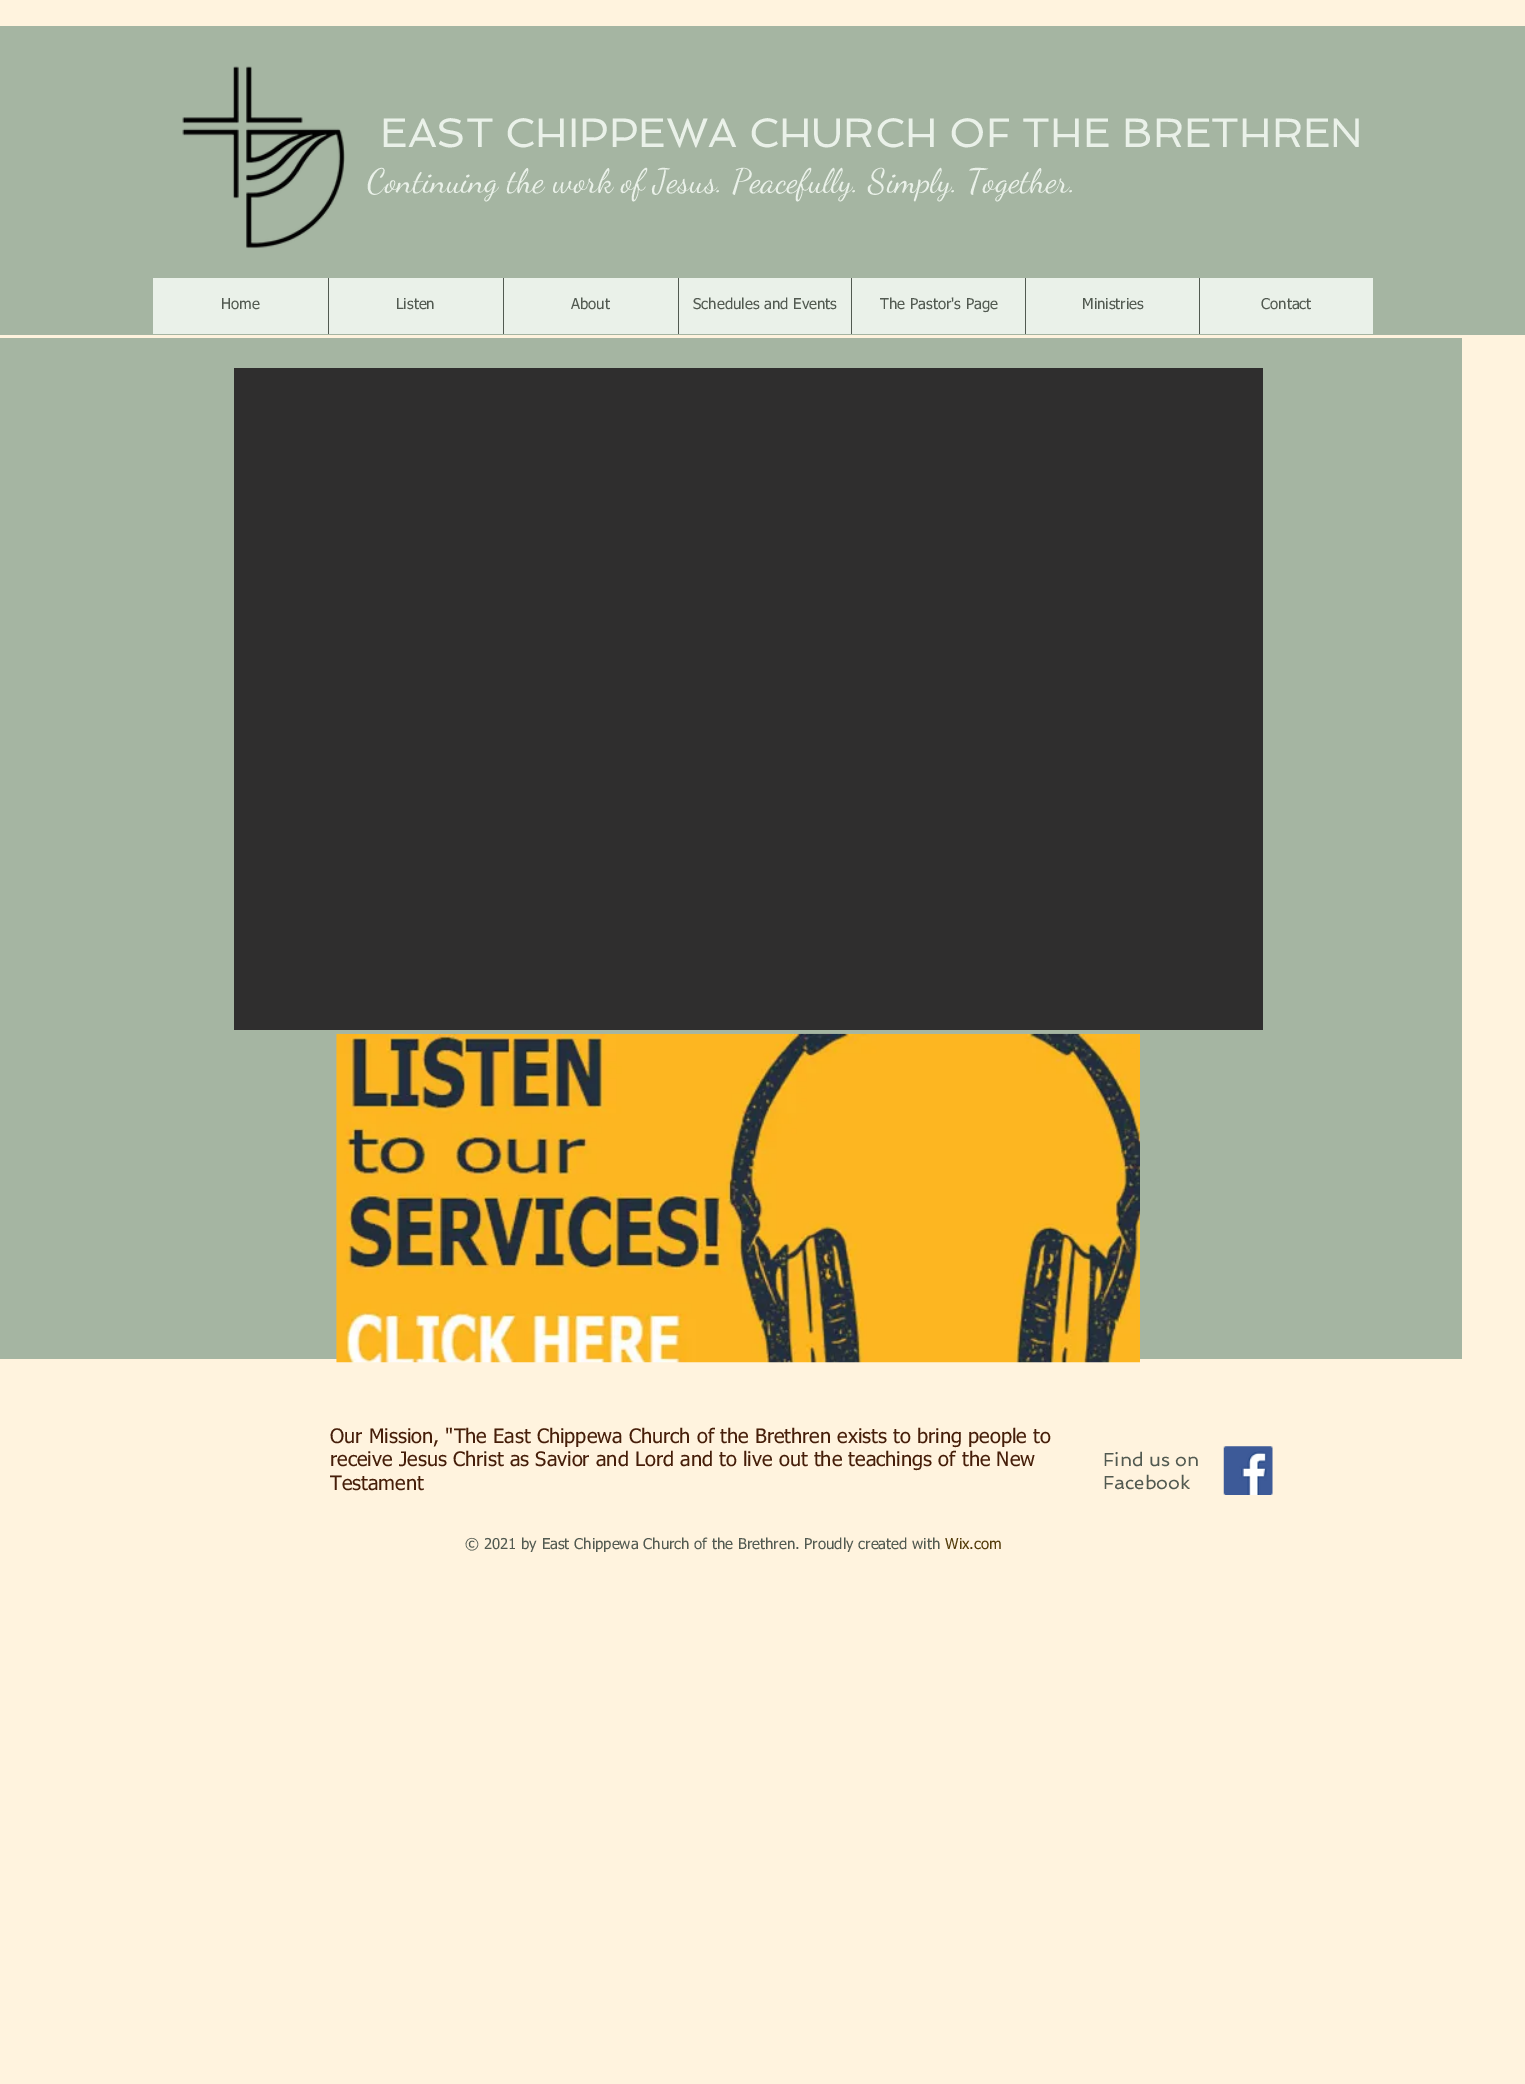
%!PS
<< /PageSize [1525 2084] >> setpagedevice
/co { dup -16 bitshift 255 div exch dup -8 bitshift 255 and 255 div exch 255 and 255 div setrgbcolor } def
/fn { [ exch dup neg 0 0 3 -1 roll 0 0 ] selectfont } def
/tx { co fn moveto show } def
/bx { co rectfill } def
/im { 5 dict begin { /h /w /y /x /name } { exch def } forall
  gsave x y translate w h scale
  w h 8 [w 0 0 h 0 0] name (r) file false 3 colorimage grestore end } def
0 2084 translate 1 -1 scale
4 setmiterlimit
0 0 1525 2084 16#FFF3DE bx
0 26 1525 309 16#A5B5A2 bx
(media/1.raw) 182 66 163 183 im
153 278 1220 56 16#EAF1E9 bx
328 278 1 56 16#525A51 bx
503 278 1 56 16#525A51 bx
678 278 1 56 16#525A51 bx
851 278 1 56 16#525A51 bx
1025 278 1 56 16#525A51 bx
1199 278 1 56 16#525A51 bx
0 338 1462 1021 16#A5B5A2 bx
234 368 1029 662 16#2F2E2E bx
(media/2.raw) 336 1033 804 330 im
(media/3.raw) 1223 1446 50 49 im
(EAST CHIPPEWA CHURCH OF THE BRETHREN) 380 147 /Spinnaker-Regular 41.25 16#EAF1E9 tx
(Continuing the work of Jesus. Peacefully. Simply. Together.) 367 192 /DancingScript-Regular 33.75 16#EAF1E9 tx
(Home) 221 309 /tahoma-Regular 15 16#525A51 tx
(Listen) 396 309 /tahoma-Regular 15 16#525A51 tx
(About) 571 309 /tahoma-Regular 15 16#525A51 tx
(Schedules and Events) 693 309 /tahoma-Regular 15 16#525A51 tx
(The Pastor's Page) 880 309 /tahoma-Regular 15 16#525A51 tx
(Ministries) 1082 309 /tahoma-Regular 15 16#525A51 tx
(Contact) 1261 309 /tahoma-Regular 15 16#525A51 tx
(Our Mission, "The East Chippewa Church of the Brethren exists to bring people to) 330 1443 /tahoma-Regular 20 16#461E09 tx
(receive Jesus Christ as Savior and Lord and to live out the teachings of the New) 330 1466 /tahoma-Regular 20 16#461E09 tx
(Testament) 330 1490 /tahoma-Regular 20 16#461E09 tx
(Find us on) 1103 1466 /Spinnaker-Regular 18.75 16#525A51 tx
(Facebook) 1103 1489 /Spinnaker-Regular 18.75 16#525A51 tx
(© 2021 by East Chippewa Church of the Brethren. Proudly created with) 465 1549 /tahoma-Regular 15 16#525A51 tx
(Wix.com) 945 1549 /tahoma-Regular 15 16#543C0A tx
showpage
